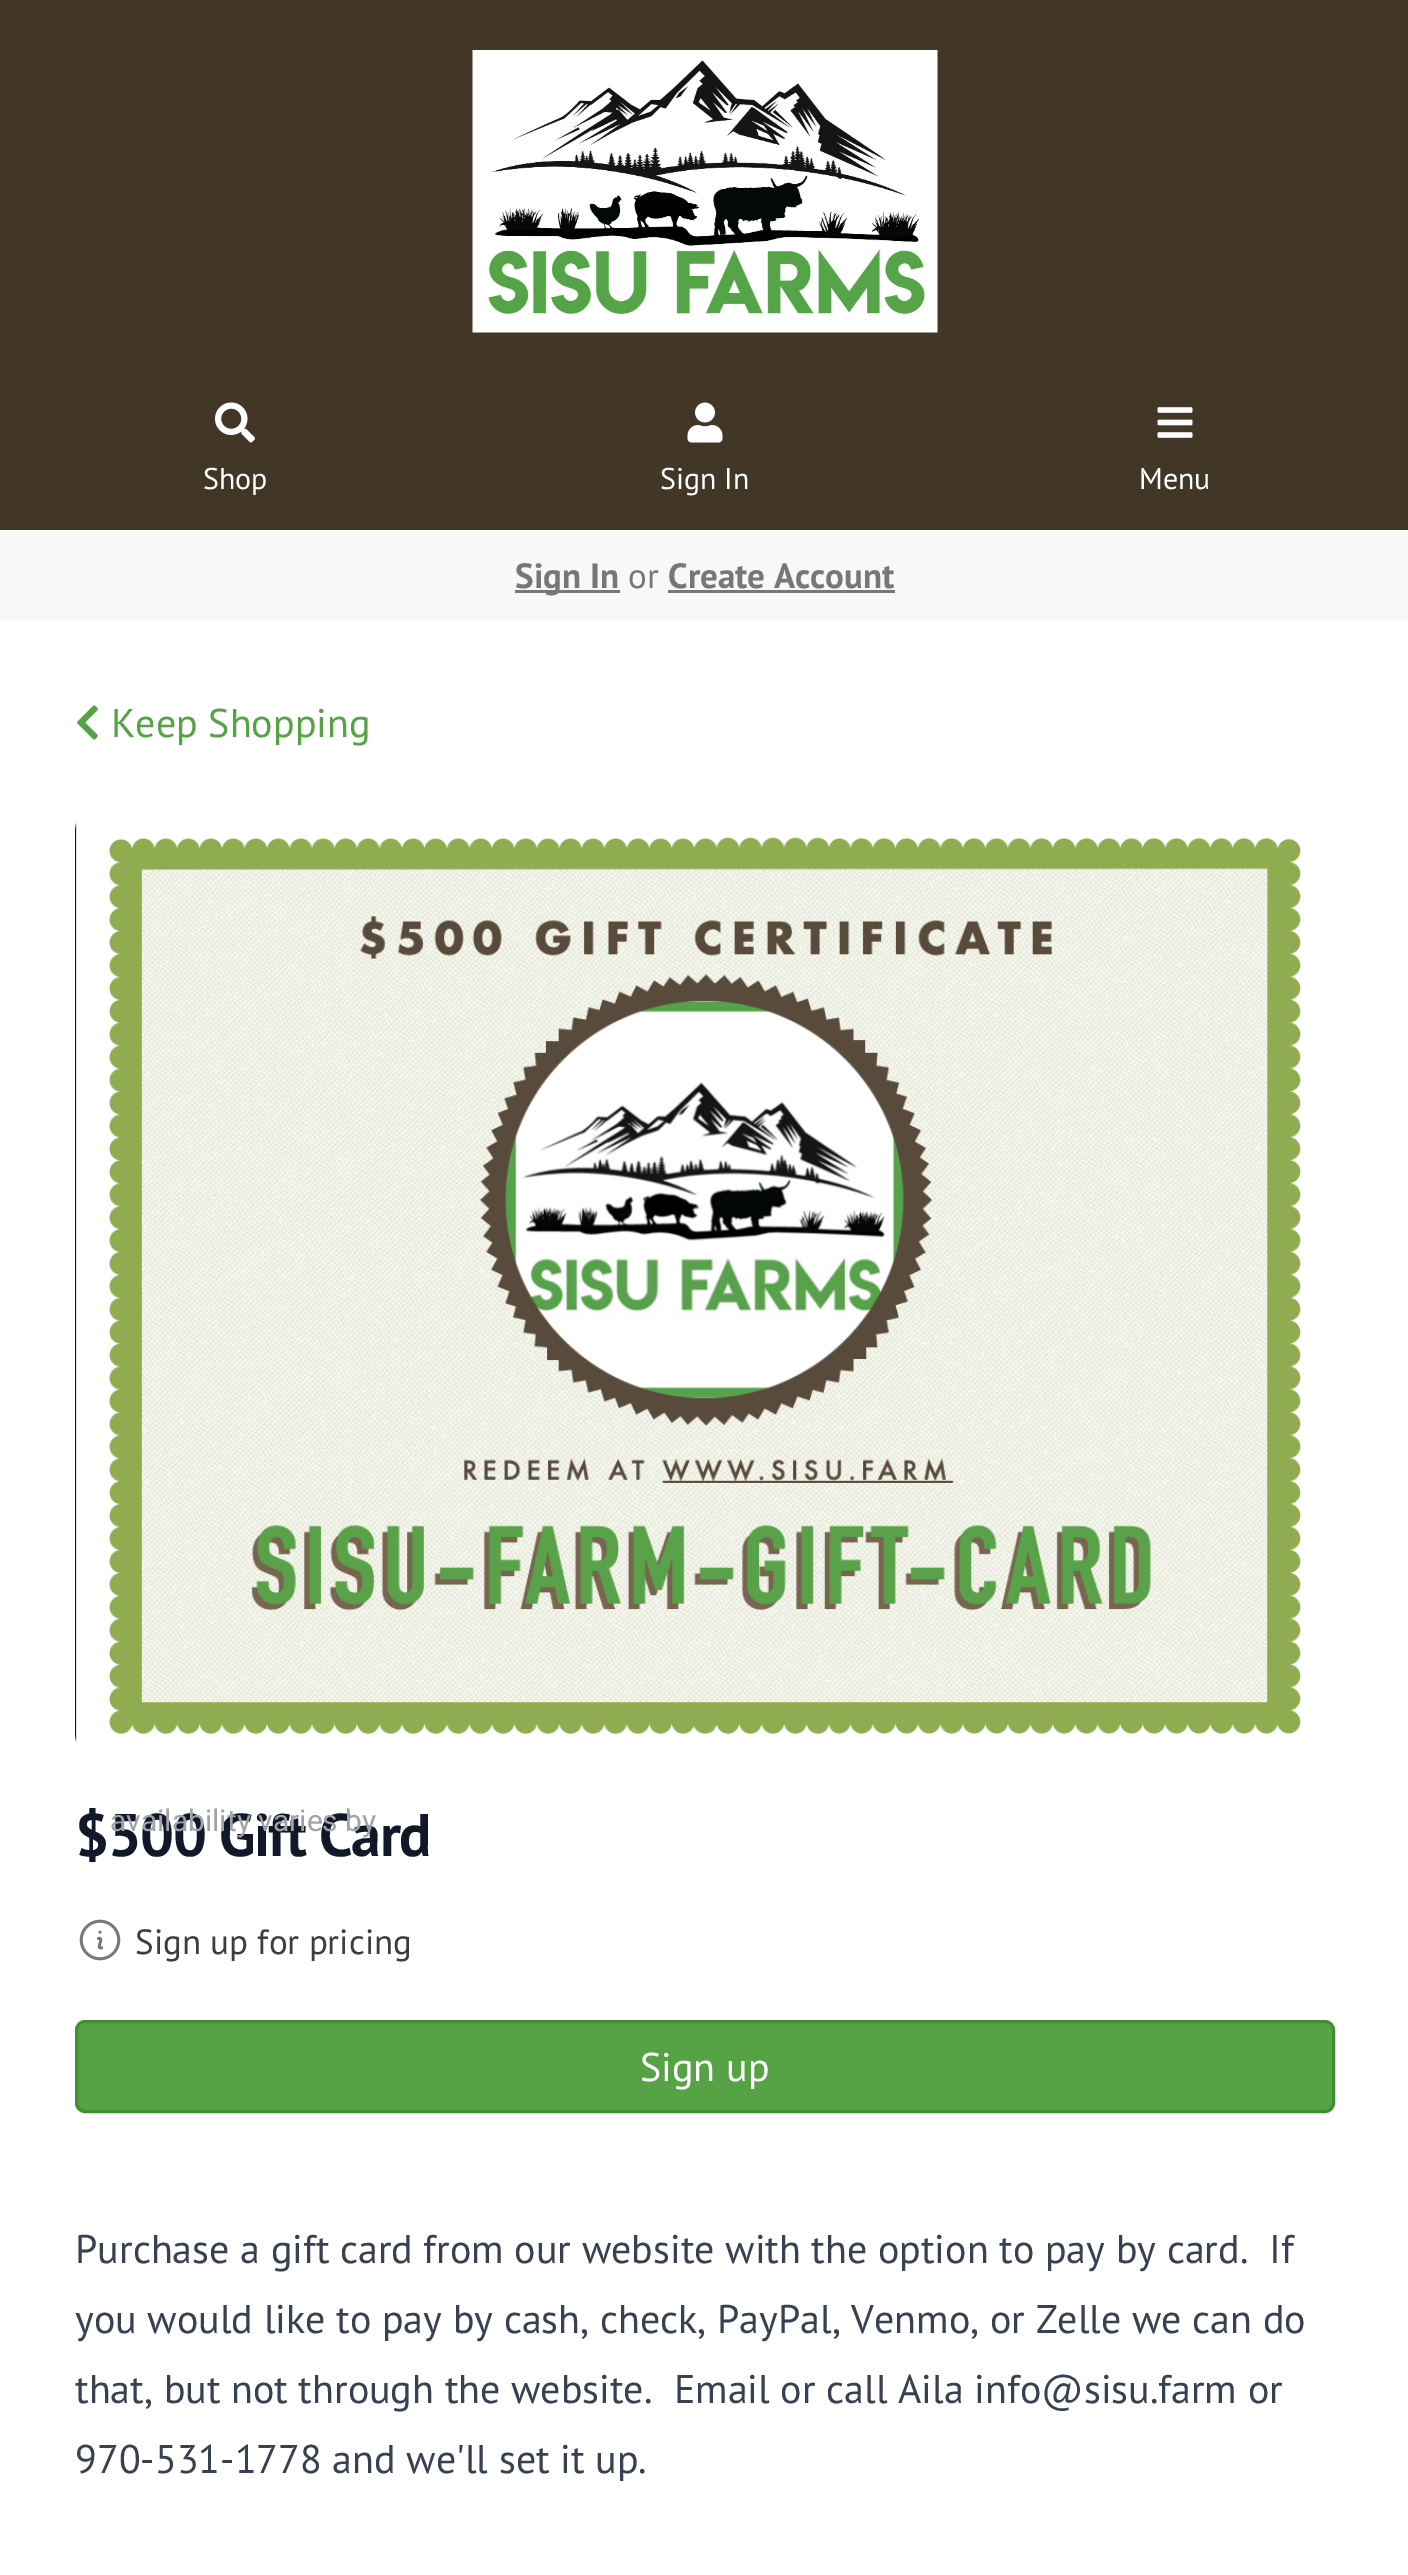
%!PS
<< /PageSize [1408 2575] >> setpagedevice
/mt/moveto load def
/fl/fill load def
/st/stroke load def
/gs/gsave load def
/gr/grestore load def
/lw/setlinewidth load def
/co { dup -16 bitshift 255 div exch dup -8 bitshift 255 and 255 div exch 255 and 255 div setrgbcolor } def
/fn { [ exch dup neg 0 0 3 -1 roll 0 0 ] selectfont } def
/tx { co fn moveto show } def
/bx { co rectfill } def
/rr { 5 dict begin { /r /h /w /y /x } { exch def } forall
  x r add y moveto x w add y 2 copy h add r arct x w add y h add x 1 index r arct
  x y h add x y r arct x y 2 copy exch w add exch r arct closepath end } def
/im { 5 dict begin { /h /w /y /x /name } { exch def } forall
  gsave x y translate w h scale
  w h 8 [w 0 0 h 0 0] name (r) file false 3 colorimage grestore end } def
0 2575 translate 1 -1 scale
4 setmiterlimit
0 0 1408 2575 16#FFFFFF bx
0 0 1408 530 16#423626 bx
(media/1.raw) 472 50 466 283 im
(media/2.raw) 215 402 40 41 im
(media/3.raw) 687 402 36 41 im
(media/4.raw) 1157 407 36 31 im
0 530 1408 90 16#F8F8F8 bx
515 590 105 3 16#777777 bx
668 590 227 3 16#777777 bx
(media/5.raw) 77 705 21 35 im
(media/6.raw) 75 822 1227 922 im
(media/7.raw) 79 1919 42 42 im
16#56A345 co
76.5 2021.5 1257 90 8.5 rr gs fl gr
16#428F31 co
3 lw
st
(Shop) 203 489 /PTSans-Regular 30 16#FFFFFF tx
(Sign In) 660 489 /PTSans-Regular 30 16#FFFFFF tx
(Menu) 1139 489 /PTSans-Regular 30 16#FFFFFF tx
(Sign In) 515 588 /PTSans-Bold 35 16#777777 tx
(or) 628 588 /PTSans-Regular 35 16#777777 tx
(Create Account) 668 588 /PTSans-Bold 35 16#777777 tx
(Keep Shopping) 111 737 /PTSans-Regular 40 16#56A345 tx
/PTSans-Bold 60 fn
16#111827 co
75 1856 mt -1.5 0 ($500 Gift Card) ashow
(availability varies by) 110 1831 /Roboto-Regular 30 16#9FA2A8 tx
(Sign up for pricing) 135 1954 /PTSans-Regular 35 16#3D3D3D tx
(Sign up) 640 2081 /PTSans-Regular 40 16#FFFFFF tx
(Purchase a gift card from our website with the option to pay by card.  If) 75 2263 /PTSans-Regular 40 16#374151 tx
(you would like to pay by cash, check, PayPal, Venmo, or Zelle we can do) 75 2333 /PTSans-Regular 40 16#374151 tx
(that, but not through the website.  Email or call Aila info@sisu.farm or) 75 2403 /PTSans-Regular 40 16#374151 tx
(970-531-1778 and we'll set it up.) 75 2473 /PTSans-Regular 40 16#374151 tx
showpage
